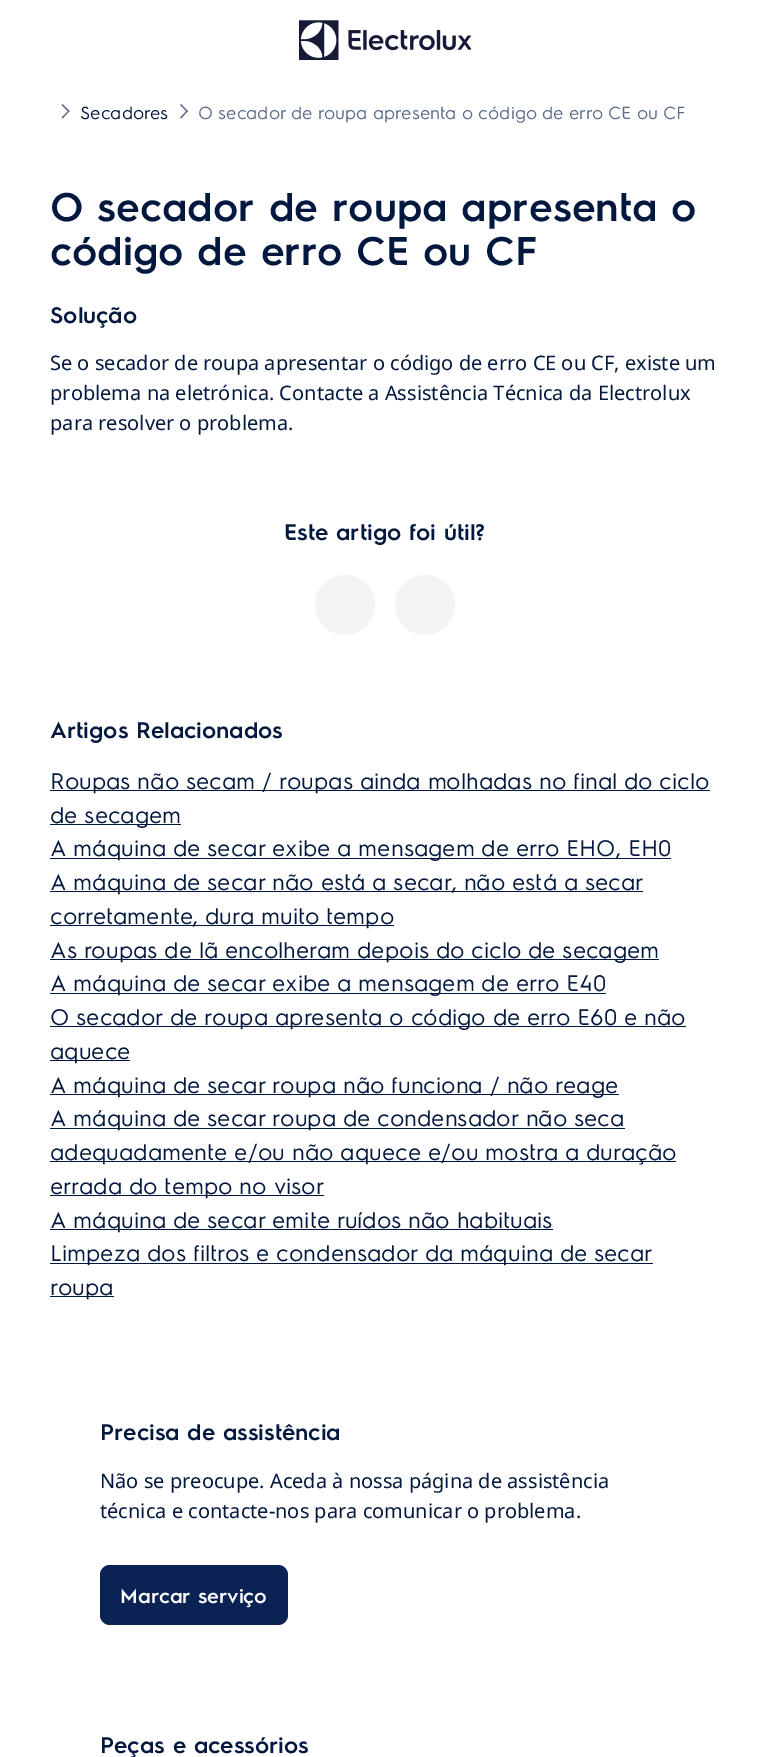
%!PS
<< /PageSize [769 1757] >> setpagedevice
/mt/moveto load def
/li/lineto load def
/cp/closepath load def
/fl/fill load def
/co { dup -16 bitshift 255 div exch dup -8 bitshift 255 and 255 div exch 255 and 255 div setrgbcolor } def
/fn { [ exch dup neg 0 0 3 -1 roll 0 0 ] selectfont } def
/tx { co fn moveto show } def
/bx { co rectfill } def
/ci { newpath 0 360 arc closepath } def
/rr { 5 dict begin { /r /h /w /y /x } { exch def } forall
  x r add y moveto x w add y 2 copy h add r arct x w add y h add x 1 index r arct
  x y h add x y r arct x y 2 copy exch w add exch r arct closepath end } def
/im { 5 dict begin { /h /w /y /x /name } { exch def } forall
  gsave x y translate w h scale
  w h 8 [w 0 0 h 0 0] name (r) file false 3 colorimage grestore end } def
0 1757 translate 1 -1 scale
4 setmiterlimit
0 0 769 1757 16#FFFFFF bx
(media/1.raw) 299 20 172 40 im
16#596B86 co
62.5 104 mt 69.5 111 li 68.5 112 li 61.5 105 li cp fl
68.5 110.5 mt 69.5 111 li 62.5 118.5 li 61.5 117.5 li cp fl
181 104 mt 188 111 li 187 112 li 180 105 li cp fl
187 110.5 mt 188 111 li 181 118.5 li 180 117.5 li cp fl
16#F3F4F6 co
345 605 30 ci fl
425 605 30 ci fl
50 790 660 1 16#03183F bx
50 824 131 1 16#03183F bx
50 858 621 1 16#03183F bx
50 891 593 1 16#03183F bx
50 925 344 1 16#03183F bx
50 959 609 1 16#03183F bx
50 993 556 1 16#03183F bx
50 1026 636 1 16#03183F bx
50 1060 80 1 16#03183F bx
50 1094 569 1 16#03183F bx
50 1128 575 1 16#03183F bx
50 1161 626 1 16#03183F bx
50 1195 274 1 16#03183F bx
50 1229 503 1 16#03183F bx
50 1263 603 1 16#03183F bx
50 1296 64 1 16#03183F bx
16#0A2354 co
100 1565 188 60 10 rr fl
(Secadores) 80 119 /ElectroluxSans-Regular 17.5 16#03183F tx
(O secador de roupa apresenta o código de erro CE ou CF) 198 119 /ElectroluxSans-Regular 17.5 16#596B86 tx
(O secador de roupa apresenta o) 50 221 /ElectroluxSans-SemiBold 40 16#03183F tx
(código de erro CE ou CF) 50 265 /ElectroluxSans-SemiBold 40 16#03183F tx
(Solução) 50 323 /ElectroluxSans-SemiBold 22.5 16#03183F tx
(Se o secador de roupa apresentar o código de erro CE ou CF, existe um) 50 370 /NotoSans-Regular 20 16#03183F tx
(problema na eletrónica. Contacte a Assistência Técnica da Electrolux) 50 400 /NotoSans-Regular 20 16#03183F tx
(para resolver o problema.) 50 430 /NotoSans-Regular 20 16#03183F tx
(Este artigo foi útil?) 284 540 /ElectroluxSans-SemiBold 22.5 16#03183F tx
(Artigos Relacionados) 50 738 /ElectroluxSans-SemiBold 22.5 16#03183F tx
(Roupas não secam / roupas ainda molhadas no final do ciclo) 50 789 /ElectroluxSans-Regular 22.5 16#03183F tx
(de secagem) 50 823 /ElectroluxSans-Regular 22.5 16#03183F tx
(A máquina de secar exibe a mensagem de erro EHO, EH0) 50 856 /ElectroluxSans-Regular 22.5 16#03183F tx
(A máquina de secar não está a secar, não está a secar) 50 890 /ElectroluxSans-Regular 22.5 16#03183F tx
(corretamente, dura muito tempo) 50 924 /ElectroluxSans-Regular 22.5 16#03183F tx
(As roupas de lã encolheram depois do ciclo de secagem) 50 958 /ElectroluxSans-Regular 22.5 16#03183F tx
(A máquina de secar exibe a mensagem de erro E40) 50 991 /ElectroluxSans-Regular 22.5 16#03183F tx
(O secador de roupa apresenta o código de erro E60 e não) 50 1025 /ElectroluxSans-Regular 22.5 16#03183F tx
(aquece) 50 1059 /ElectroluxSans-Regular 22.5 16#03183F tx
(A máquina de secar roupa não funciona / não reage) 50 1093 /ElectroluxSans-Regular 22.5 16#03183F tx
(A máquina de secar roupa de condensador não seca) 50 1126 /ElectroluxSans-Regular 22.5 16#03183F tx
(adequadamente e/ou não aquece e/ou mostra a duração) 50 1160 /ElectroluxSans-Regular 22.5 16#03183F tx
(errada do tempo no visor) 50 1194 /ElectroluxSans-Regular 22.5 16#03183F tx
(A máquina de secar emite ruídos não habituais) 50 1228 /ElectroluxSans-Regular 22.5 16#03183F tx
(Limpeza dos filtros e condensador da máquina de secar) 50 1261 /ElectroluxSans-Regular 22.5 16#03183F tx
(roupa) 50 1295 /ElectroluxSans-Regular 22.5 16#03183F tx
(Precisa de assistência) 100 1440 /ElectroluxSans-SemiBold 22.5 16#03183F tx
(Não se preocupe. Aceda à nossa página de assistência) 100 1488 /NotoSans-Regular 20 16#03183F tx
(técnica e contacte-nos para comunicar o problema.) 100 1518 /NotoSans-Regular 20 16#03183F tx
(Marcar serviço) 120 1603 /ElectroluxSans-SemiBold 20 16#FFFFFF tx
(Peças e acessórios) 100 1753 /ElectroluxSans-SemiBold 22.5 16#03183F tx
showpage
